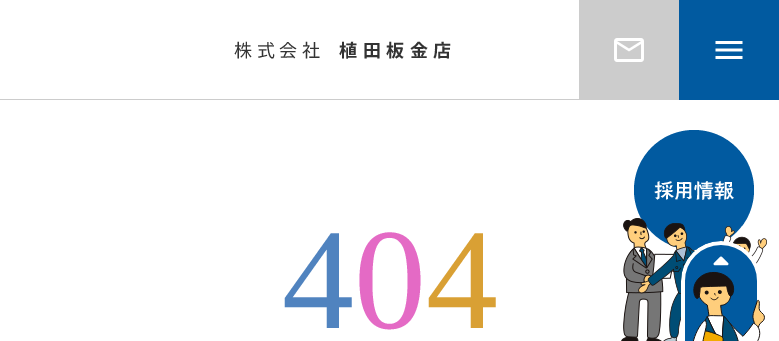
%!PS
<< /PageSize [779 341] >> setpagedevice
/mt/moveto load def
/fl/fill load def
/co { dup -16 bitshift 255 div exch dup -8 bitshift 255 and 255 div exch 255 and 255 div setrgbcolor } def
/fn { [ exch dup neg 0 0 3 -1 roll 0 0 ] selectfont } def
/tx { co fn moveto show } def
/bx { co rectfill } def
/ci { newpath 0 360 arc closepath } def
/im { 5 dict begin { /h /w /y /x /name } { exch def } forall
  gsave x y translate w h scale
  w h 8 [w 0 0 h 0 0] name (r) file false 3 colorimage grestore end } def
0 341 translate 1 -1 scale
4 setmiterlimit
0 0 779 341 16#FFFFFF bx
0 99 579 1 16#CCCCCC bx
579 0 100 100 16#CCCCCC bx
(media/1.raw) 614 38 30 24 im
679 0 100 100 16#015AA0 bx
(media/2.raw) 715 41 28 18 im
694 190 60 ci fl
(media/3.raw) 621 218 54 123 im
(media/4.raw) 638 223 58 118 im
(media/5.raw) 722 226 45 38 im
(media/6.raw) 681 241 84 100 im
/NotoSansJP-Regular 18 fn
16#333333 co
234 57 mt 4.5 0 (株式会社) ashow
/NotoSansJP-Bold 18 fn
339 57 mt 5.5 0 (植田板金店) ashow
(採用情報) 654 198 /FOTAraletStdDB-SemiBold 20 16#FFFFFF tx
(4) 282 328 /LiberationSerif-Regular 144 16#5083BF tx
(0) 354 328 /LiberationSerif-Regular 144 16#E46AC5 tx
(4) 426 328 /LiberationSerif-Regular 144 16#D9A034 tx
showpage
